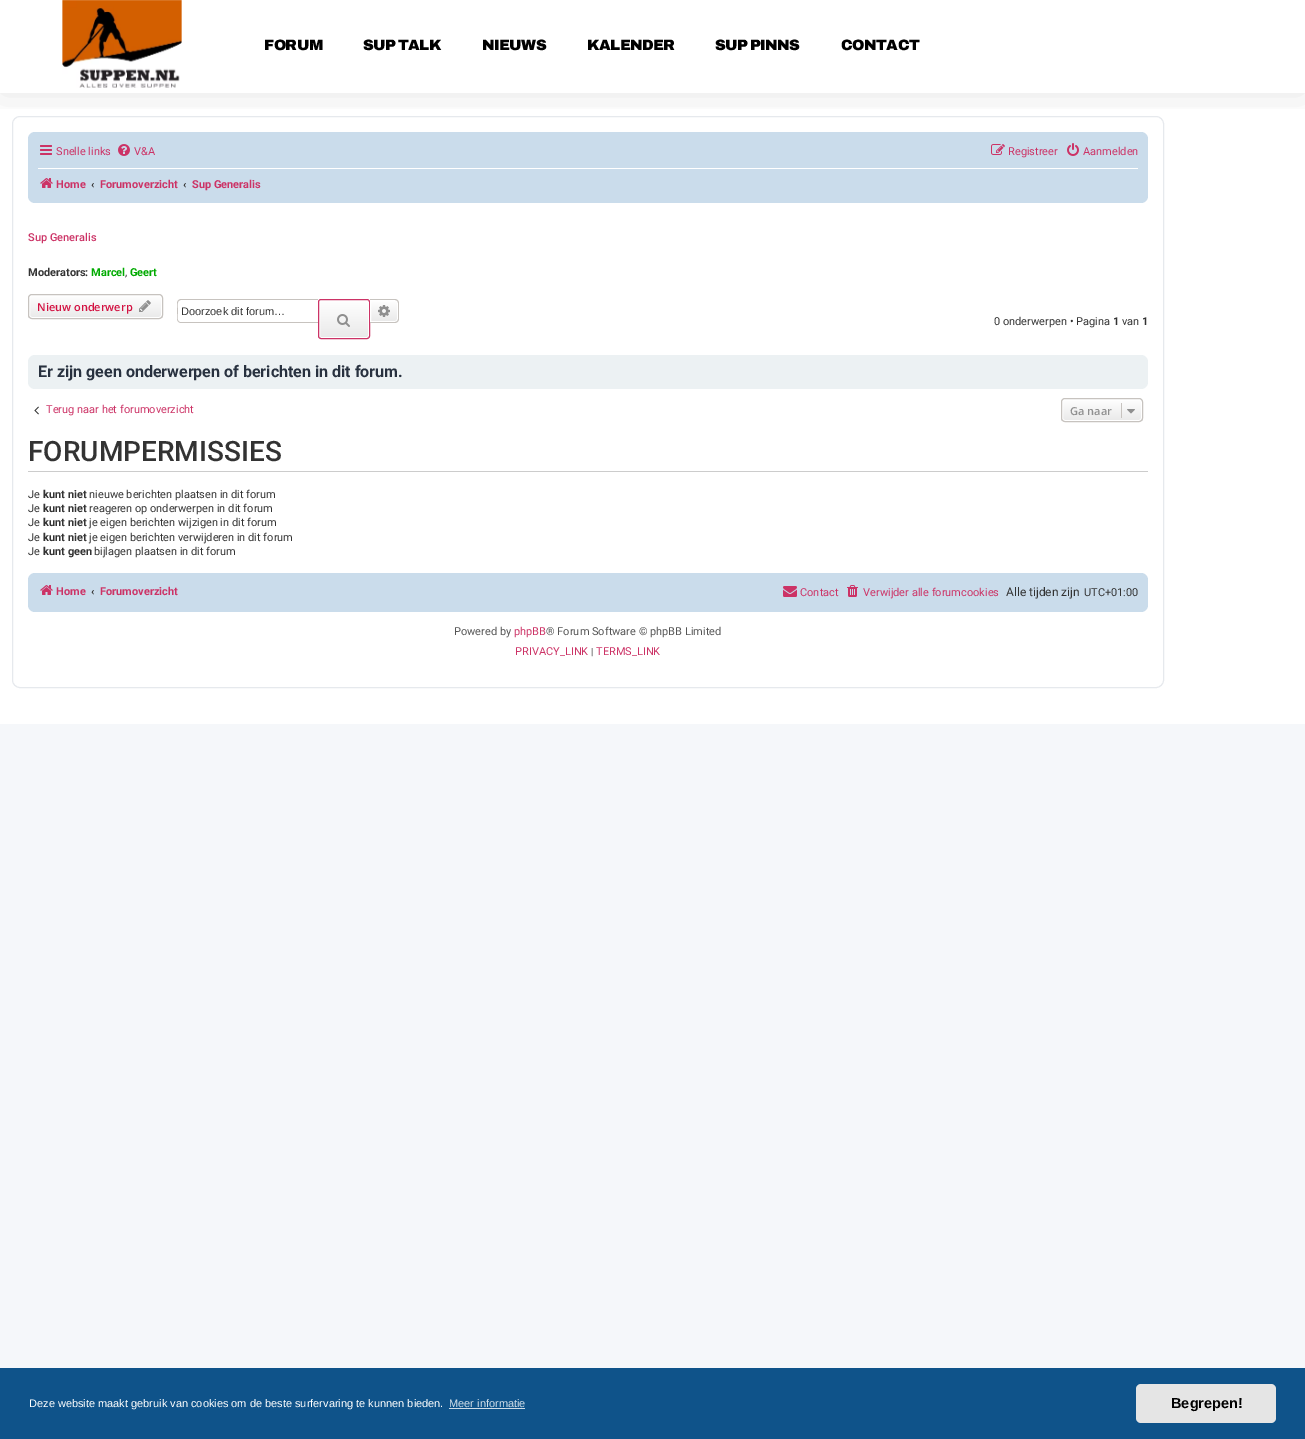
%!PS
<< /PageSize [1305 1439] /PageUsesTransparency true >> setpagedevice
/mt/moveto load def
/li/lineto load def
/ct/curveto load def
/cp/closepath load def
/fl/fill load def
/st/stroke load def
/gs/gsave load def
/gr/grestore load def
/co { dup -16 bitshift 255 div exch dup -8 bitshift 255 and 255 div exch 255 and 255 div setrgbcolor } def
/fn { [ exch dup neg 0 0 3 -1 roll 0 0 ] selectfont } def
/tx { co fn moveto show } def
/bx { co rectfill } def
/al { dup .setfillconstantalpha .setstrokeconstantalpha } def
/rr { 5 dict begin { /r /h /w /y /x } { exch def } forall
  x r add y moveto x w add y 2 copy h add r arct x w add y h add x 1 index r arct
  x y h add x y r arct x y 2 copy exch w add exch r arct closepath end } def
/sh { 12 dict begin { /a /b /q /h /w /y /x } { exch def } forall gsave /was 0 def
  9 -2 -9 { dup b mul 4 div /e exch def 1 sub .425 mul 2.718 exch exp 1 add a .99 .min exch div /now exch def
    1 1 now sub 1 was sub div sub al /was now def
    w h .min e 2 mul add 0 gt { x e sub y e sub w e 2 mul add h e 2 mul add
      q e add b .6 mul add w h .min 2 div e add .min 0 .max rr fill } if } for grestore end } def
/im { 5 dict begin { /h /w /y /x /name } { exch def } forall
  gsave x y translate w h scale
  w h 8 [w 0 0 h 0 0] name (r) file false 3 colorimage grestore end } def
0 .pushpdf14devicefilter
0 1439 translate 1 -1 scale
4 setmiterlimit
0 0 1305 1439 16#F5F7FA bx
0 0 1305 724 16#FFFFFF bx
16#E6E9ED co
12.5 116.5 1151 571 7.5 rr st
16#CADCEB co
28 132 1120 71 7 rr fl
(media/2.raw) 40 145 12 10 im
(media/3.raw) 118 144 12 12 im
(media/4.raw) 991 144 14 11 im
(media/5.raw) 1067 143 12 13 im
gs
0 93 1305 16 rectclip
16#000000 co
0 0 1305 93 0 19 .1 sh
gr
(media/1.raw) 62 0 120 88 im
38 168 1100 1 16#FFFFFF bx
(media/6.raw) 40 178 13 10 im
gs
28 294 135 25 4 rr clip newpath
gs 28 295 mt 163 295 li 163 318 li 28 318 li cp clip newpath
<< /ShadingType 2 /ColorSpace /DeviceRGB /Coords [96 295 96 318] /Extend [true true] /Function << /FunctionType 2 /Domain [0 1] /C0 [1 1 1] /C1 [.914 .914 .914] /N 1 >> >> shfill gr
gr
29.5 295.5 132 22 2.5 rr st
16#C7C3BF co
28.5 294.5 134 24 3.5 rr st
(media/7.raw) 139 300 12 12 im
181 299 mt 318 299 li 318 323 li 181 323 li 179 323 177 321 177 319 ct 177 303 li 177 301 179 299 181 299 ct cp 181 300 mt 318 300 li 318 322 li 180 322 li 176 321 178 314 178 311 ct 178 308 176 300 181 300 ct cp eofill
gs
318 299 52 40 3 rr clip newpath
gs 318 300 mt 370 300 li 370 338 li 318 338 li cp clip newpath
<< /ShadingType 2 /ColorSpace /DeviceRGB /Coords [344 300 344 338] /Extend [true true] /Function << /FunctionType 2 /Domain [0 1] /C0 [1 1 1] /C1 [.914 .914 .914] /N 1 >> >> shfill gr
gr
16#FFFFFF co
319.5 300.5 49 37 1.5 rr st
16#CC3366 co
318.5 299.5 51 39 2.5 rr st
(media/8.raw) 337 314 13 13 im
gs 370.5 300.5 mt 395 300.5 li 396.5 300.5 397.5 301.5 397.5 303 ct 397.5 319 li 397.5 320.5 396.5 321.5 395 321.5 ct 370.5 321.5 li cp clip newpath
<< /ShadingType 2 /ColorSpace /DeviceRGB /Coords [384 300 384 322] /Extend [true true] /Function << /FunctionType 2 /Domain [0 1] /C0 [1 1 1] /C1 [.914 .914 .914] /N 1 >> >> shfill gr
16#FFFFFF co
370.5 300.5 mt 395 300.5 li 396.5 300.5 397.5 301.5 397.5 303 ct 397.5 319 li 397.5 320.5 396.5 321.5 395 321.5 ct 370.5 321.5 li cp st
16#C7C3BF co
370 299 mt 395 299 li 397 299 399 301 399 303 ct 399 319 li 399 321 397 323 395 323 ct 370 323 li cp 370 300 mt 395 300 li 396.5 300 398 301.5 398 303 ct 398 319 li 398 320.5 396.5 322 395 322 ct 370 322 li cp eofill
(media/9.raw) 378 305 12 12 im
16#ECF1F3 co
28 355 1120 34 7 rr fl
(media/10.raw) 34 406 5 9 im
gs
1061 398 82 24 4 rr clip newpath
gs 1061 399 mt 1143 399 li 1143 421 li 1061 421 li cp clip newpath
<< /ShadingType 2 /ColorSpace /DeviceRGB /Coords [1102 399 1102 421] /Extend [true true] /Function << /FunctionType 2 /Domain [0 1] /C0 [1 1 1] /C1 [.914 .914 .914] /N 1 >> >> shfill gr
gr
16#FFFFFF co
1062.5 399.5 79 21 2.5 rr st
16#C7C3BF co
1061.5 398.5 81 23 3.5 rr st
1121 403 1 15 16#C7C3BF bx
(media/11.raw) 1127 409 8 5 im
28 471 1120 1 16#CCCCCC bx
16#CADCEB co
28 573 1120 39 7 rr fl
(media/6.raw) 40 585 13 10 im
(media/12.raw) 783 586 14 11 im
(media/13.raw) 847 585 11 12 im
0 1368 1305 71 16#0F538A bx
449 1408 76 1 16#CFDDE8 bx
16#E5E5E5 co
1136 1384 140 39 5 rr fl
/Archivo-Black 15 fn
16#000000 co
264 50 mt -.5 0 (FORUM) ashow
363 50 mt -.5 0 (SUP TALK) ashow
482 50 mt -.5 0 (NIEUWS) ashow
587 50 mt -.5 0 (KALENDER) ashow
715 50 mt -.5 0 (SUP PINNS) ashow
841 50 mt -.5 0 (CONTACT) ashow
(Snelle links) 56 155 /Roboto-Regular 11 16#CC3366 tx
(V&A) 134 155 /Roboto-Regular 11 16#CC3366 tx
(Registreer) 1008 155 /Roboto-Regular 11 16#CC3366 tx
(Aanmelden) 1083 155 /Roboto-Regular 11 16#CC3366 tx
(Home) 56 188 /Roboto-Bold 11 16#CC3366 tx
(‹) 91 188 /Roboto-Bold 11 16#333333 tx
(Forumoverzicht) 100 188 /Roboto-Bold 11 16#CC3366 tx
(‹) 183 188 /Roboto-Bold 11 16#333333 tx
(Sup Generalis) 192 188 /Roboto-Bold 11 16#CC3366 tx
(Sup Generalis) 28 241 /Roboto-Medium 11 16#CC3366 tx
(Moderators:) 28 276 /Roboto-Bold 11 16#333333 tx
(Marcel) 91 276 /Roboto-Bold 11 16#00AA00 tx
(,) 125 276 /Roboto-Regular 11 16#333333 tx
(Geert) 130 276 /Roboto-Bold 11 16#00AA00 tx
(Nieuw onderwerp) 37 311 /OpenSans-SemiBold 11 16#D31141 tx
(Doorzoek dit forum…) 181 315 /LiberationSans-Regular 11 16#333333 tx
(0 onderwerpen • Pagina) 994 325 /Roboto-Regular 11 16#333333 tx
(1) 1113 325 /Roboto-Bold 11 16#333333 tx
(van) 1122 325 /Roboto-Regular 11 16#333333 tx
(1) 1142 325 /Roboto-Bold 11 16#333333 tx
(Er zijn geen onderwerpen of berichten in dit forum.) 38 377 /Roboto-Bold 16 16#28313F tx
(Terug naar het forumoverzicht) 46 413 /Roboto-Regular 11 16#CC3366 tx
(Ga naar) 1070 415 /OpenSans-SemiBold 11 16#8F8F8F tx
(FORUMPERMISSIES) 28 461 /Roboto-Medium 28 16#333333 tx
(Je) 28 498 /Roboto-Regular 11 16#333333 tx
(kunt niet) 43 498 /Roboto-Bold 11 16#333333 tx
(nieuwe berichten plaatsen in dit forum) 89 498 /Roboto-Regular 11 16#333333 tx
(Je) 28 512 /Roboto-Regular 11 16#333333 tx
(kunt niet) 43 512 /Roboto-Bold 11 16#333333 tx
(reageren op onderwerpen in dit forum) 89 512 /Roboto-Regular 11 16#333333 tx
(Je) 28 526 /Roboto-Regular 11 16#333333 tx
(kunt niet) 43 526 /Roboto-Bold 11 16#333333 tx
(je eigen berichten wijzigen in dit forum) 89 526 /Roboto-Regular 11 16#333333 tx
(Je) 28 541 /Roboto-Regular 11 16#333333 tx
(kunt niet) 43 541 /Roboto-Bold 11 16#333333 tx
(je eigen berichten verwijderen in dit forum) 89 541 /Roboto-Regular 11 16#333333 tx
(Je) 28 555 /Roboto-Regular 11 16#333333 tx
(kunt geen) 43 555 /Roboto-Bold 11 16#333333 tx
(bijlagen plaatsen in dit forum) 94 555 /Roboto-Regular 11 16#333333 tx
(Home) 56 595 /Roboto-Bold 11 16#CC3366 tx
(‹) 91 595 /Roboto-Bold 11 16#333333 tx
(Forumoverzicht) 100 595 /Roboto-Bold 11 16#CC3366 tx
(Contact) 800 596 /Roboto-Regular 11 16#CC3366 tx
(Verwijder alle forumcookies) 863 596 /Roboto-Regular 11 16#CC3366 tx
(Alle tijden zijn) 1006 596 /Roboto-Regular 12 16#333333 tx
(UTC+01:00) 1084 596 /Roboto-Regular 11 16#333333 tx
(Powered by) 454 635 /Roboto-Regular 11 16#555555 tx
(phpBB) 514 635 /Roboto-Regular 11 16#CC3366 tx
(® Forum Software © phpBB Limited) 546 635 /Roboto-Regular 11 16#555555 tx
(PRIVACY_LINK) 515 655 /Roboto-Regular 11 16#CC3366 tx
(|) 591 655 /Roboto-Regular 10 16#555555 tx
(TERMS_LINK) 596 655 /Roboto-Regular 11 16#CC3366 tx
(Deze website maakt gebruik van cookies om de beste surfervaring te kunnen bieden.) 29 1407 /LiberationSans-Regular 11 16#FFFFFF tx
(Meer informatie) 449 1407 /LiberationSans-Regular 11 16#CFDDE8 tx
(Begrepen!) 1171 1408 /LiberationSans-Bold 14.5 16#000000 tx
.poppdf14devicefilter showpage
